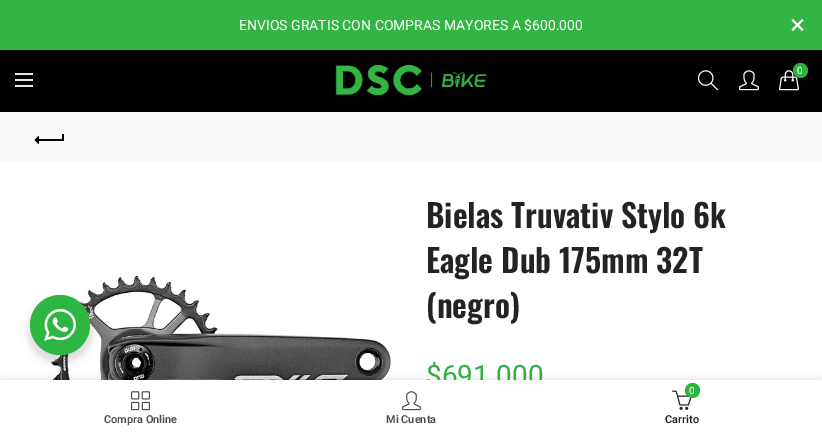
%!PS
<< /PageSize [822 435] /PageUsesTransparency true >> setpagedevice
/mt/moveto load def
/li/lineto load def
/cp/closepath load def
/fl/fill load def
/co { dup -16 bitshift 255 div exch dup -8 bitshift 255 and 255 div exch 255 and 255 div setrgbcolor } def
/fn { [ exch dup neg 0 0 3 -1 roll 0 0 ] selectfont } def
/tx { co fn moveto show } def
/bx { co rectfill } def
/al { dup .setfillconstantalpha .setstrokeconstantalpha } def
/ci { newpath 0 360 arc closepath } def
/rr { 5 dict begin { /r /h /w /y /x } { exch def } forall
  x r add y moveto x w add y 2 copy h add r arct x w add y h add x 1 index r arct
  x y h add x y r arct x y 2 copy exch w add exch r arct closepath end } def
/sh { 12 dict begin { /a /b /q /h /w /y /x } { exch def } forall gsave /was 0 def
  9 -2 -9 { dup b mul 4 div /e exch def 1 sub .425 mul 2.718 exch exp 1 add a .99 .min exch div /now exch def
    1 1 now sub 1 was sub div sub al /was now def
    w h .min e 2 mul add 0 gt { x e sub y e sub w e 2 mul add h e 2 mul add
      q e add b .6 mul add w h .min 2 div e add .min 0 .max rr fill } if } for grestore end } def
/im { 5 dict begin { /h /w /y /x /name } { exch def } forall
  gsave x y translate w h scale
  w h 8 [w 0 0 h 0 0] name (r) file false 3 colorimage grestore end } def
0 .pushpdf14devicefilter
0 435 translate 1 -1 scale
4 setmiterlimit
0 0 822 435 16#FFFFFF bx
0 0 822 50 16#33B543 bx
16#FFFFFF co
793 19 mt 803.5 29.5 li 802 31 li 791.5 20.5 li cp fl
791.5 29.5 mt 802 19 li 803.5 20.5 li 793 31 li cp fl
(media/7.raw) 51 275 340 105 im
16#000000 co
28 299 64 64 32 4 .14 sh
16#2DB742 co
60 325 30 ci fl
(media/1.raw) 44 309 32 32 im
0 50 822 62 16#000000 bx
(media/2.raw) 335 64 151 32 im
(media/3.raw) 698 70 20 21 im
(media/4.raw) 739 70 20 21 im
(media/5.raw) 779 70 20 21 im
16#2FB140 co
800.5 70.5 7.5 ci fl
15 79 18 2 16#E6E6E6 bx
15 73 18 2 16#E6E6E6 bx
15 85 18 2 16#E6E6E6 bx
0 112 822 50 16#F9F9F9 bx
38 139 25 2 16#000000 bx
(media/6.raw) 34 136 5 8 im
62 134 2 7 16#000000 bx
0 380 822 55 0 4.5 .12 sh
(ENVIOS GRATIS CON COMPRAS MAYORES A $600.000) 239 30 /Roboto-Regular 14 16#FFFFFF tx
(0) 797 74 /Roboto-Regular 10 16#FFFFFF tx
(Bielas Truvativ Stylo 6k) 426 228 /Oswald-SemiBold 32 16#252222 tx
(Eagle Dub 175mm 32T) 426 273 /Oswald-SemiBold 32 16#252222 tx
(\(negro\)) 426 318 /Oswald-SemiBold 32 16#252222 tx
($691.000) 426 385 /Roboto-Regular 28 16#2FB140 tx
0 380 822 55 16#FFFFFF bx
(media/8.raw) 131 391 19 20 im
(Compra Online) 104 423 /Roboto-SemiBold 11 16#4C4C4C tx
(media/9.raw) 402 391 19 20 im
(Mi Cuenta) 386 423 /Roboto-SemiBold 11 16#4C4C4C tx
(media/10.raw) 672 390 20 20 im
16#2FB140 co
692.5 390.5 7.5 ci fl
(0) 689 394 /Roboto-Regular 10 16#FFFFFF tx
(Carrito) 665 423 /Roboto-SemiBold 11 16#252222 tx
.poppdf14devicefilter showpage
